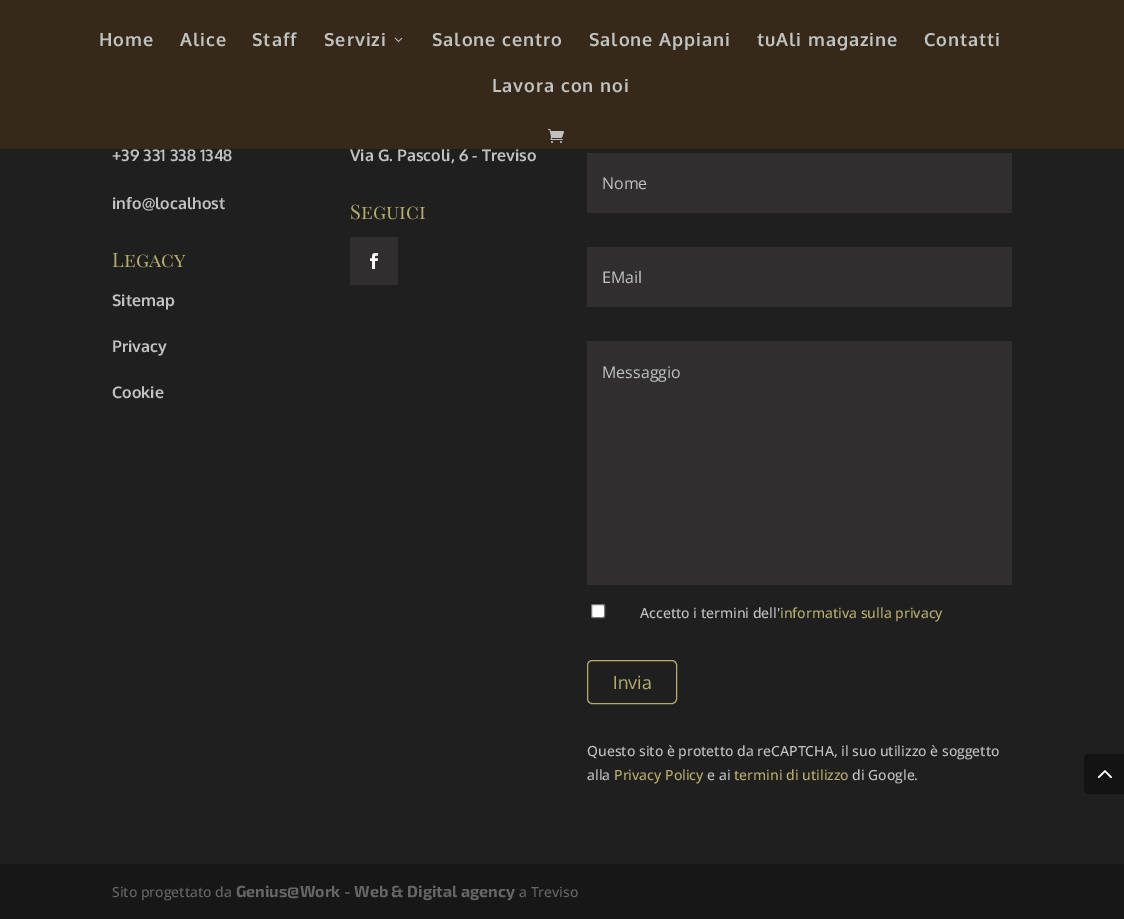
%!PS
<< /PageSize [1124 919] /PageUsesTransparency true >> setpagedevice
/mt/moveto load def
/li/lineto load def
/ct/curveto load def
/cp/closepath load def
/fl/fill load def
/st/stroke load def
/gs/gsave load def
/gr/grestore load def
/co { dup -16 bitshift 255 div exch dup -8 bitshift 255 and 255 div exch 255 and 255 div setrgbcolor } def
/fn { [ exch dup neg 0 0 3 -1 roll 0 0 ] selectfont } def
/tx { co fn moveto show } def
/bx { co rectfill } def
/al { dup .setfillconstantalpha .setstrokeconstantalpha } def
/rr { 5 dict begin { /r /h /w /y /x } { exch def } forall
  x r add y moveto x w add y 2 copy h add r arct x w add y h add x 1 index r arct
  x y h add x y r arct x y 2 copy exch w add exch r arct closepath end } def
/im { 5 dict begin { /h /w /y /x /name } { exch def } forall
  gsave x y translate w h scale
  w h 8 [w 0 0 h 0 0] name (r) file false 3 colorimage grestore end } def
0 .pushpdf14devicefilter
0 919 translate 1 -1 scale
4 setmiterlimit
0 0 1124 919 16#171717 bx
0 149 1124 715 16#1F1F1F bx
0.1 al
0 149 1124 1 16#000000 bx
1 al
0 0 1124 149 16#362919 bx
(media/1.raw) 394 37 9 5 im
(media/2.raw) 548 129 16 14 im
350 237 48 48 16#302E2E bx
(media/3.raw) 370 253 8 16 im
587 153 425 60 16#302E2E bx
587 247 425 60 16#302E2E bx
587 341 425 244 16#302E2E bx
16#FFFFFF co
591.5 604.5 13 13 1.5 rr gs fl gr
16#767676 co
st
16#B7AD68 co
587.5 660.5 89 43 4.5 rr st
16#131313 co
1089 754 mt 1124 754 li 1124 794 li 1089 794 li 1086 794 1084 792 1084 789 ct 1084 759 li 1084 756 1086 754 1089 754 ct cp fl
(media/4.raw) 1097 770 15 9 im
/Oxygen-Bold 18 fn
16#C1C3C2 co
99 46 mt 1 0 (Home) ashow
180 46 mt 1 0 (Alice) ashow
252 46 mt 1 0 (Staff) ashow
324 46 mt 1 0 (Servizi) ashow
432 46 mt 1 0 (Salone centro) ashow
589 46 mt 1 0 (Salone Appiani) ashow
757 46 mt 1 0 (tuAli magazine) ashow
924 46 mt 1 0 (Contatti) ashow
492 92 mt 1 0 (Lavora con noi) ashow
(+39 331 338 1348) 112 161 /Oxygen-Bold 16 16#C1C3C2 tx
(info@localhost) 112 209 /Oxygen-Bold 16 16#C1C3C2 tx
(Legacy) 112 267 /PlayfairDisplaySC-Regular 20 16#B7AD68 tx
(Sitemap) 112 306 /Oxygen-Bold 16 16#C1C3C2 tx
(Privacy) 112 352 /Oxygen-Bold 16 16#C1C3C2 tx
(Cookie) 112 398 /Oxygen-Bold 16 16#C1C3C2 tx
(Via G. Pascoli, 6 - Treviso) 350 161 /Oxygen-Bold 16 16#C1C3C2 tx
(Seguici) 350 219 /PlayfairDisplaySC-Regular 20 16#B7AD68 tx
(Nome) 602 189 /OpenSans-Regular 16 16#C1C3C2 tx
(EMail) 602 283 /OpenSans-Regular 16 16#C1C3C2 tx
(Messaggio) 602 378 /OpenSans-Regular 16 16#C1C3C2 tx
(Accetto i termini dell') 640 618 /OpenSans-Medium 14 16#C1C3C2 tx
(informativa sulla privacy) 780 618 /OpenSans-Medium 14 16#B7AD68 tx
(Invia) 613 689 /Oxygen-Regular 18 16#B7AD68 tx
(Questo sito è protetto da reCAPTCHA, il suo utilizzo è soggetto) 587 756 /OpenSans-Medium 14 16#C1C3C2 tx
(alla) 587 780 /OpenSans-Medium 14 16#C1C3C2 tx
(Privacy Policy) 614 780 /OpenSans-Medium 14 16#B7AD68 tx
(e ai) 707 780 /OpenSans-Medium 14 16#C1C3C2 tx
(termini di utilizzo) 734 780 /OpenSans-Medium 14 16#B7AD68 tx
(di Google.) 852 780 /OpenSans-Medium 14 16#C1C3C2 tx
(Sito progettato da) 112 897 /OpenSans-Medium 14 16#666666 tx
(Genius@Work - Web & Digital agency) 236 897 /Exo2-Bold 16 16#666666 tx
(a Treviso) 519 897 /OpenSans-Medium 14 16#666666 tx
.poppdf14devicefilter showpage
